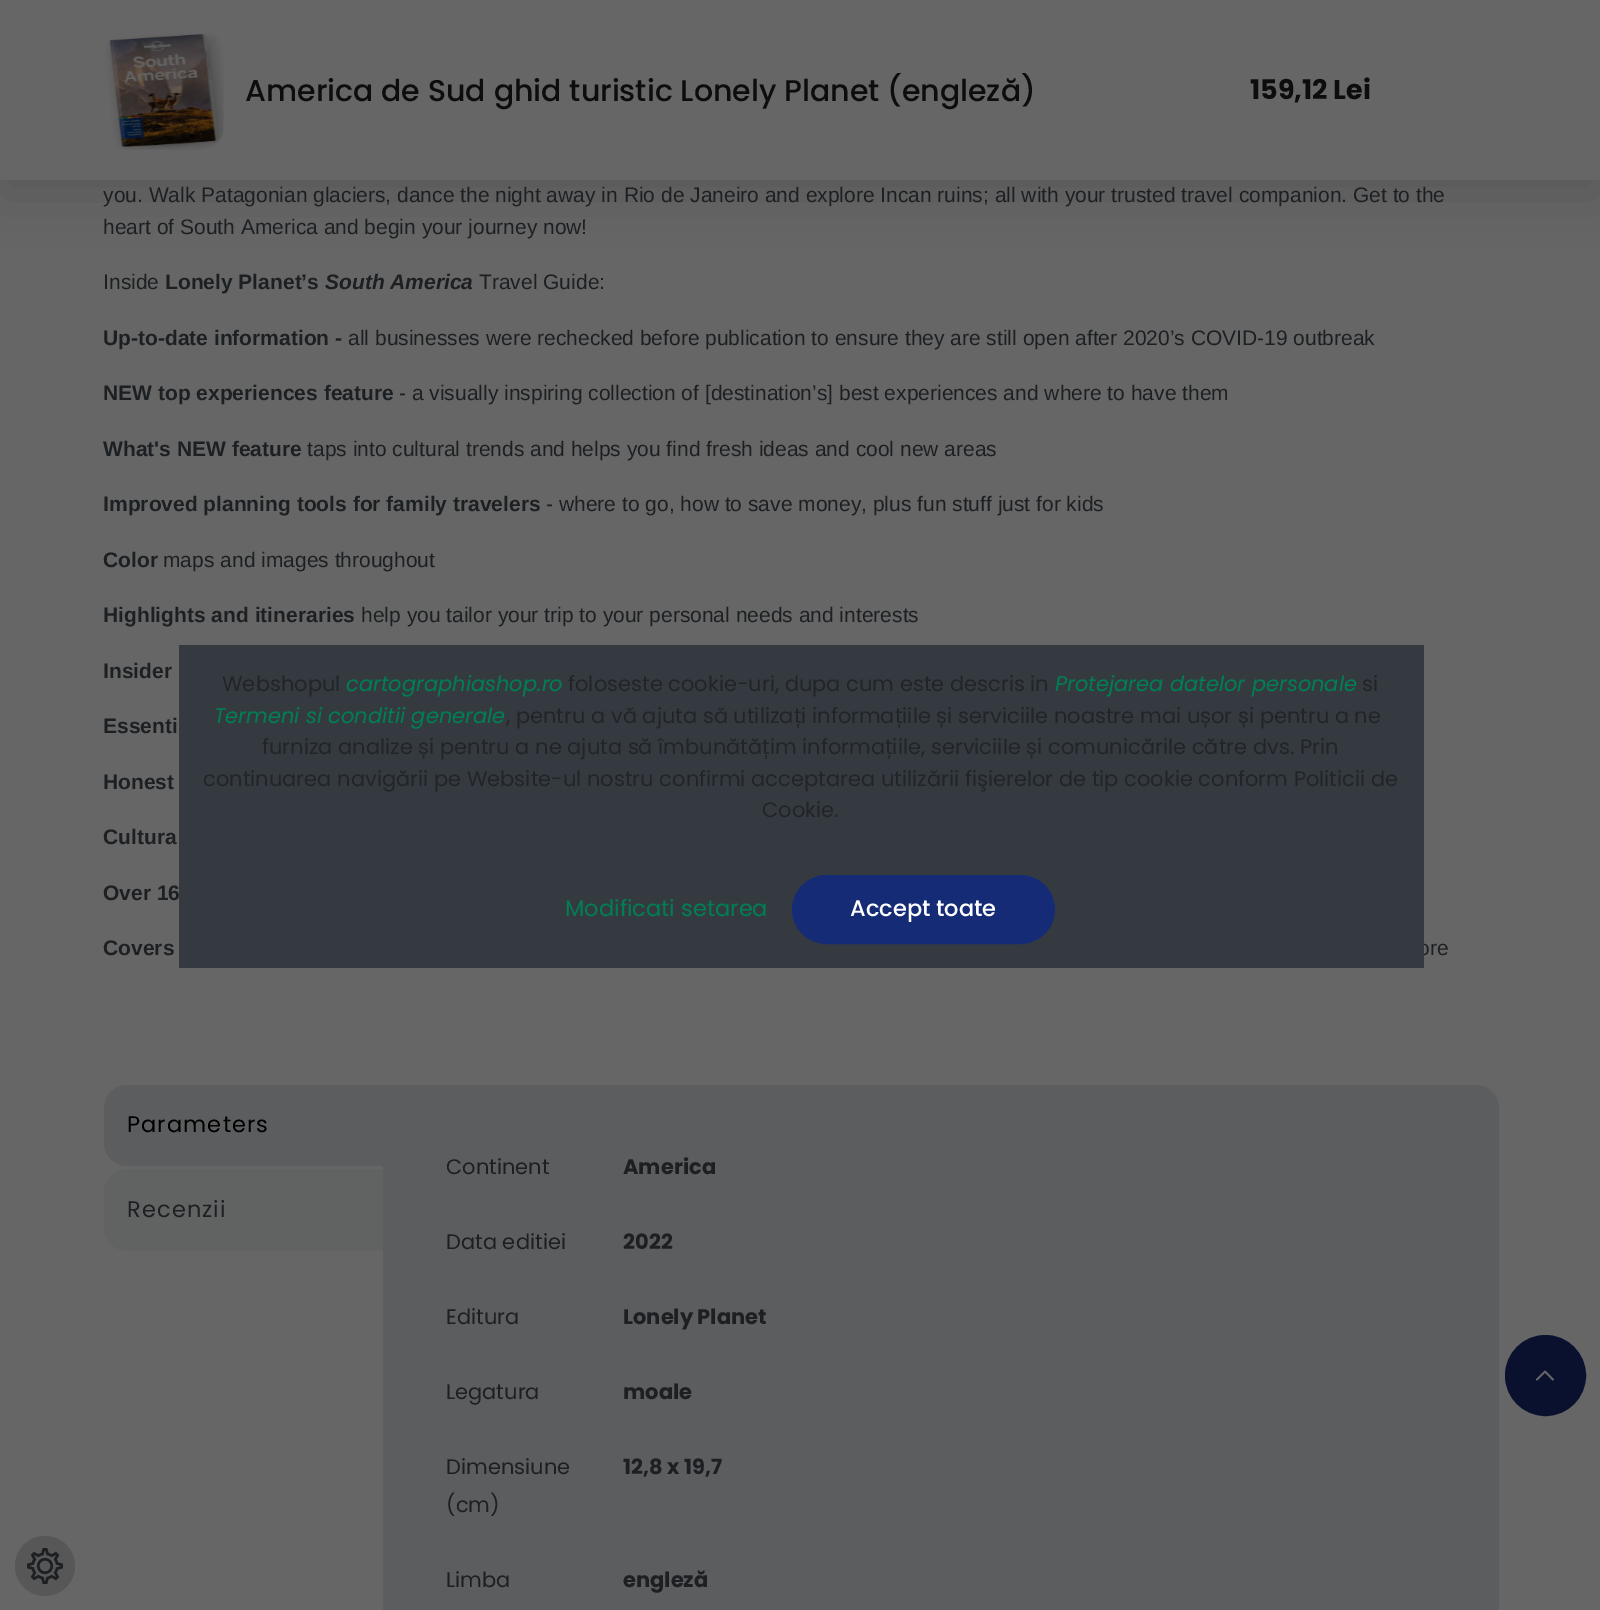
%!PS
<< /PageSize [1600 1610] /PageUsesTransparency true >> setpagedevice
/mt/moveto load def
/li/lineto load def
/ct/curveto load def
/cp/closepath load def
/fl/fill load def
/st/stroke load def
/gs/gsave load def
/gr/grestore load def
/lw/setlinewidth load def
/co { dup -16 bitshift 255 div exch dup -8 bitshift 255 and 255 div exch 255 and 255 div setrgbcolor } def
/fn { [ exch dup neg 0 0 3 -1 roll 0 0 ] selectfont } def
/tx { co fn moveto show } def
/bx { co rectfill } def
/al { dup .setfillconstantalpha .setstrokeconstantalpha } def
/ci { newpath 0 360 arc closepath } def
/rr { 5 dict begin { /r /h /w /y /x } { exch def } forall
  x r add y moveto x w add y 2 copy h add r arct x w add y h add x 1 index r arct
  x y h add x y r arct x y 2 copy exch w add exch r arct closepath end } def
/sh { 12 dict begin { /a /b /q /h /w /y /x } { exch def } forall gsave /was 0 def
  9 -2 -9 { dup b mul 4 div /e exch def 1 sub .425 mul 2.718 exch exp 1 add a .99 .min exch div /now exch def
    1 1 now sub 1 was sub div sub al /was now def
    w h .min e 2 mul add 0 gt { x e sub y e sub w e 2 mul add h e 2 mul add
      q e add b .6 mul add w h .min 2 div e add .min 0 .max rr fill } if } for grestore end } def
/im { 5 dict begin { /h /w /y /x /name } { exch def } forall
  gsave x y translate w h scale
  w h 8 [w 0 0 h 0 0] name (r) file false 3 colorimage grestore end } def
0 .pushpdf14devicefilter
0 1610 translate 1 -1 scale
4 setmiterlimit
0 0 1600 1610 16#666666 bx
16#575757 co
45 1566 30 ci fl
(media/1.raw) 27 1548 36 36 im
16#000000 co
0 15 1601 180 0 30 .15 sh
0 0 1600 180 16#666666 bx
(media/2.raw) 104 33 120 117 im
16#5C5D5E co
127 1085 mt 383 1085 li 383 1166 li 127 1166 li 114.5 1166 104 1155.5 104 1143 ct 104 1108 li 104 1095.5 114.5 1085 127 1085 ct cp fl
16#616262 co
127 1169 mt 383 1169 li 383 1251 li 127 1251 li 114.5 1251 104 1240.5 104 1228 ct 104 1192 li 104 1179.5 114.5 1169 127 1169 ct cp fl
16#5C5D5E co
383 1085 mt 1476 1085 li 1488.5 1085 1499 1095.5 1499 1108 ct 1499 1610 li 1499 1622.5 1488.5 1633 1476 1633 ct 406 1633 li 393.5 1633 383 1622.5 383 1610 ct cp fl
16#09112F co
1545.5 1375.5 39.5 ci gs fl gr
2 lw
st
(media/3.raw) 1536 1370 18 11 im
(America de Sud ghid turistic Lonely Planet \(engleză\)) 245 101 /Poppins-Medium 30 16#0D0D0D tx
(159,12 Lei) 1250 99 /Poppins-Bold 27 16#0D0D0D tx
(you. Walk Patagonian glaciers, dance the night away in Rio de Janeiro and explore Incan ruins; all with your trusted travel companion. Get to the) 103 202 /LiberationSans-Regular 21 16#1D2023 tx
(heart of South America and begin your journey now!) 103 234 /LiberationSans-Regular 21 16#1D2023 tx
(Inside) 103 289 /LiberationSans-Regular 21 16#1D2023 tx
(Lonely Planet’s) 165 289 /LiberationSans-Bold 21 16#1D2023 tx
(South America) 325 289 /LiberationSans-BoldItalic 21 16#1D2023 tx
(Travel Guide:) 479 289 /LiberationSans-Regular 21 16#1D2023 tx
(Up-to-date information -) 103 345 /LiberationSans-Bold 21 16#1D2023 tx
(all businesses were rechecked before publication to ensure they are still open after 2020’s COVID-19 outbreak) 348 345 /LiberationSans-Regular 21 16#1D2023 tx
(NEW top experiences feature) 103 400 /LiberationSans-Bold 21 16#1D2023 tx
(- a visually inspiring collection of [destination’s] best experiences and where to have them) 399 400 /LiberationSans-Regular 21 16#1D2023 tx
(What's NEW feature) 103 456 /LiberationSans-Bold 21 16#1D2023 tx
(taps into cultural trends and helps you find fresh ideas and cool new areas) 307 456 /LiberationSans-Regular 21 16#1D2023 tx
(Improved planning tools for family travelers) 103 511 /LiberationSans-Bold 21 16#1D2023 tx
(- where to go, how to save money, plus fun stuff just for kids) 546 511 /LiberationSans-Regular 21 16#1D2023 tx
(Color) 103 567 /LiberationSans-Bold 21 16#1D2023 tx
(maps and images throughout) 163 567 /LiberationSans-Regular 21 16#1D2023 tx
(Highlights and itineraries) 103 622 /LiberationSans-Bold 21 16#1D2023 tx
(help you tailor your trip to your personal needs and interests) 361 622 /LiberationSans-Regular 21 16#1D2023 tx
(Insider) 103 678 /LiberationSans-Bold 21 16#1D2023 tx
(Essenti) 103 733 /LiberationSans-Bold 21 16#1D2023 tx
(Honest) 103 789 /LiberationSans-Bold 21 16#1D2023 tx
(Cultura) 103 844 /LiberationSans-Bold 21 16#1D2023 tx
(Over 16) 103 900 /LiberationSans-Bold 21 16#1D2023 tx
(Covers) 103 955 /LiberationSans-Bold 21 16#1D2023 tx
(ore) 1418 955 /LiberationSans-Regular 21 16#1D2023 tx
/Poppins-Regular 22.5 fn
16#000000 co
127 1132 mt 1.1 0 (Parameters) ashow
16#1D2023 co
127 1217 mt 1.1 0 (Recenzii) ashow
(Continent) 446 1174 /Poppins-Regular 21 16#1D2023 tx
(America) 623 1174 /Poppins-Bold 21 16#1D2023 tx
(Data editiei) 446 1249 /Poppins-Regular 21 16#1D2023 tx
(2022) 623 1249 /Poppins-Bold 21 16#1D2023 tx
(Editura) 446 1324 /Poppins-Regular 21 16#1D2023 tx
(Lonely Planet) 623 1324 /Poppins-Bold 21 16#1D2023 tx
(Legatura) 446 1399 /Poppins-Regular 21 16#1D2023 tx
(moale) 623 1399 /Poppins-Bold 21 16#1D2023 tx
(Dimensiune) 446 1474 /Poppins-Regular 21 16#1D2023 tx
(\(cm\)) 446 1512 /Poppins-Regular 21 16#1D2023 tx
(12,8 x 19,7) 623 1474 /Poppins-Bold 21 16#1D2023 tx
(Limba) 446 1587 /Poppins-Regular 21 16#1D2023 tx
(engleză) 623 1587 /Poppins-Bold 21 16#1D2023 tx
179 645 1245 323 16#343A40 bx
(Webshopul) 222 691 /Poppins-Regular 21 16#212529 tx
(cartographiashop.ro) 346 691 /Poppins-Italic 21 16#007F53 tx
(foloseste cookie-uri, dupa cum este descris in) 568 691 /Poppins-Regular 21 16#212529 tx
(Protejarea datelor personale) 1055 691 /Poppins-Italic 21 16#007F53 tx
(si) 1362 691 /Poppins-Regular 21 16#212529 tx
(Termeni si conditii generale) 214 723 /Poppins-Italic 21 16#007F53 tx
(, pentru a vă ajuta să utilizați informațiile și serviciile noastre mai ușor și pentru a ne) 506 723 /Poppins-Regular 21 16#212529 tx
(furniza analize și pentru a ne ajuta să îmbunătățim informațiile, serviciile și comunicările către dvs. Prin) 262 754 /Poppins-Regular 21 16#212529 tx
(continuarea navigării pe Website-ul nostru confirmi acceptarea utilizării fişierelor de tip cookie conform Politicii de) 203 786 /Poppins-Regular 21 16#212529 tx
(Cookie.) 762 817 /Poppins-Regular 21 16#212529 tx
(Modificati setarea) 565 916 /Poppins-Regular 22.5 16#007F53 tx
16#162B75 co
793 876 261 67 33.5 rr gs fl gr
st
(Accept toate) 850 916 /Poppins-Medium 22.5 16#FFFFFF tx
.poppdf14devicefilter showpage
